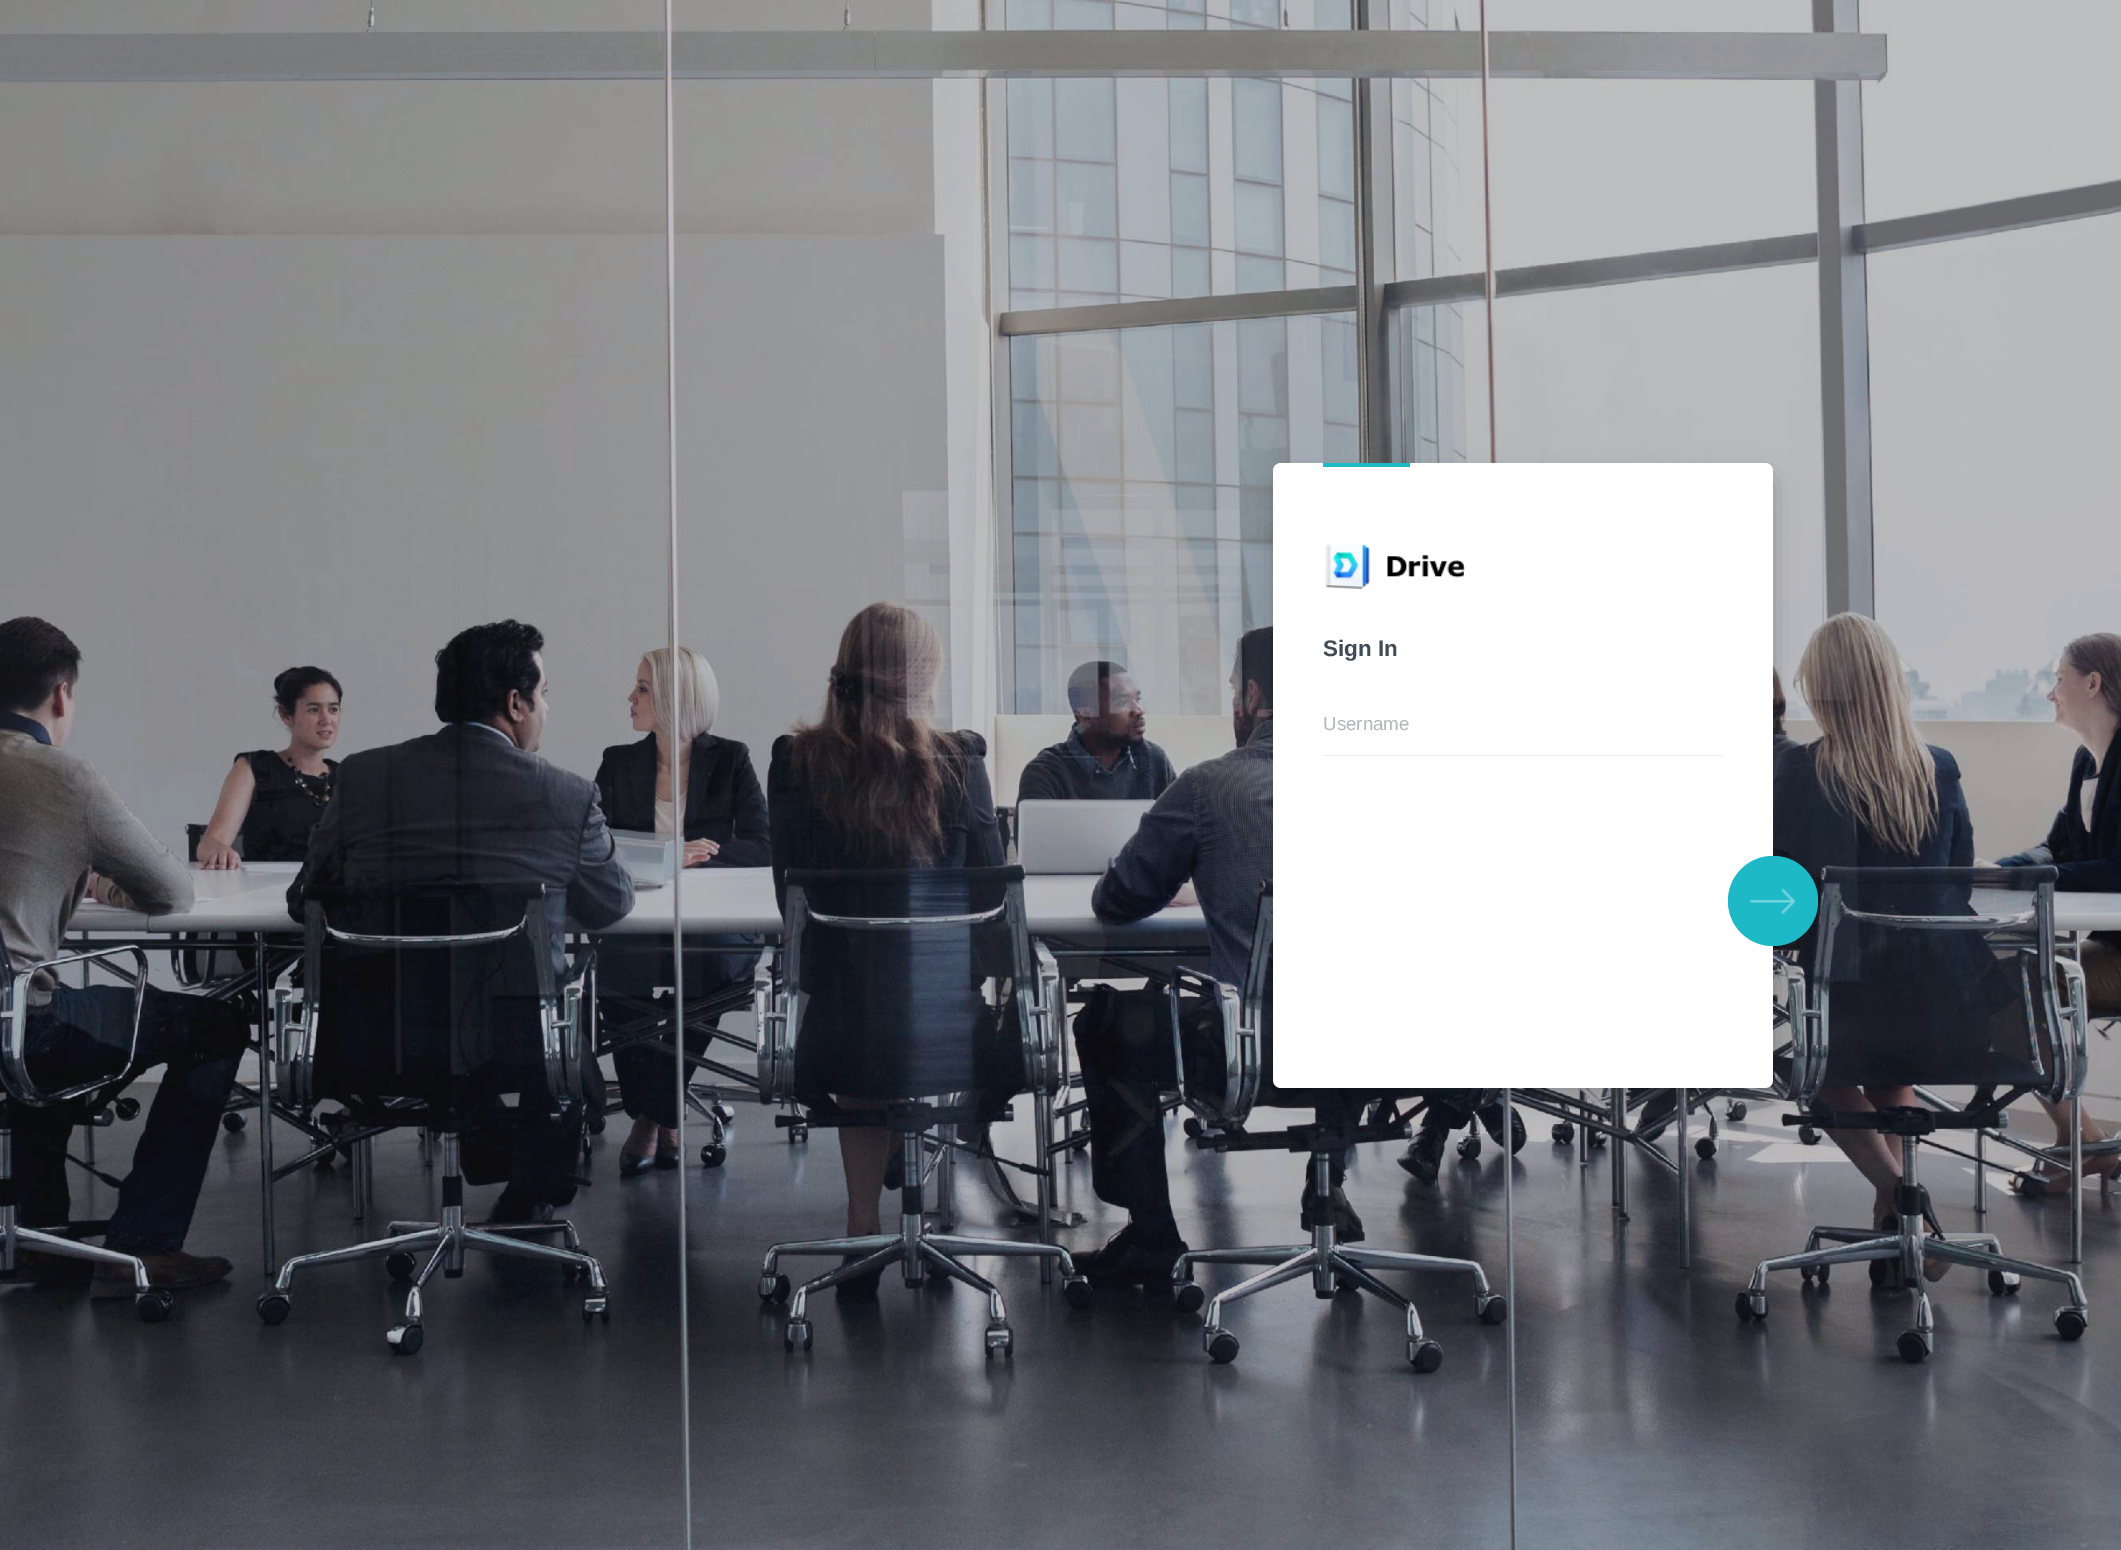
%!PS
<< /PageSize [2121 1550] /PageUsesTransparency true >> setpagedevice
/fl/fill load def
/co { dup -16 bitshift 255 div exch dup -8 bitshift 255 and 255 div exch 255 and 255 div setrgbcolor } def
/fn { [ exch dup neg 0 0 3 -1 roll 0 0 ] selectfont } def
/tx { co fn moveto show } def
/bx { co rectfill } def
/al { dup .setfillconstantalpha .setstrokeconstantalpha } def
/ci { newpath 0 360 arc closepath } def
/rr { 5 dict begin { /r /h /w /y /x } { exch def } forall
  x r add y moveto x w add y 2 copy h add r arct x w add y h add x 1 index r arct
  x y h add x y r arct x y 2 copy exch w add exch r arct closepath end } def
/sh { 12 dict begin { /a /b /q /h /w /y /x } { exch def } forall gsave /was 0 def
  9 -2 -9 { dup b mul 4 div /e exch def 1 sub .425 mul 2.718 exch exp 1 add a .99 .min exch div /now exch def
    1 1 now sub 1 was sub div sub al /was now def
    w h .min e 2 mul add 0 gt { x e sub y e sub w e 2 mul add h e 2 mul add
      q e add b .6 mul add w h .min 2 div e add .min 0 .max rr fill } if } for grestore end } def
/im { 5 dict begin { /h /w /y /x /name } { exch def } forall
  gsave x y translate w h scale
  w h 8 [w 0 0 h 0 0] name (r) file false 3 colorimage grestore end } def
0 .pushpdf14devicefilter
0 1550 translate 1 -1 scale
4 setmiterlimit
0 0 2121 1550 16#FFFFFF bx
(media/1.raw) 0 0 2121 1550 im
16#000000 co
1273 475 500 625 8 12.5 .2 sh
16#FFFFFF co
1273 463 500 625 8 rr fl
1323 463 87 4 16#1EB9C7 bx
(media/2.raw) 1325 543 140 47 im
1323 755 400 1 16#EAEBED bx
16#1EB9C7 co
1773 901 45 ci fl
0.5 al
1773 901 45 ci fl
1 al
(media/3.raw) 1750 888 46 26 im
(Sign In) 1323 656 /LiberationSans-Bold 22.5 16#414B55 tx
(Username) 1323 730 /LiberationSans-Regular 18.75 16#B3B7BB tx
.poppdf14devicefilter showpage
